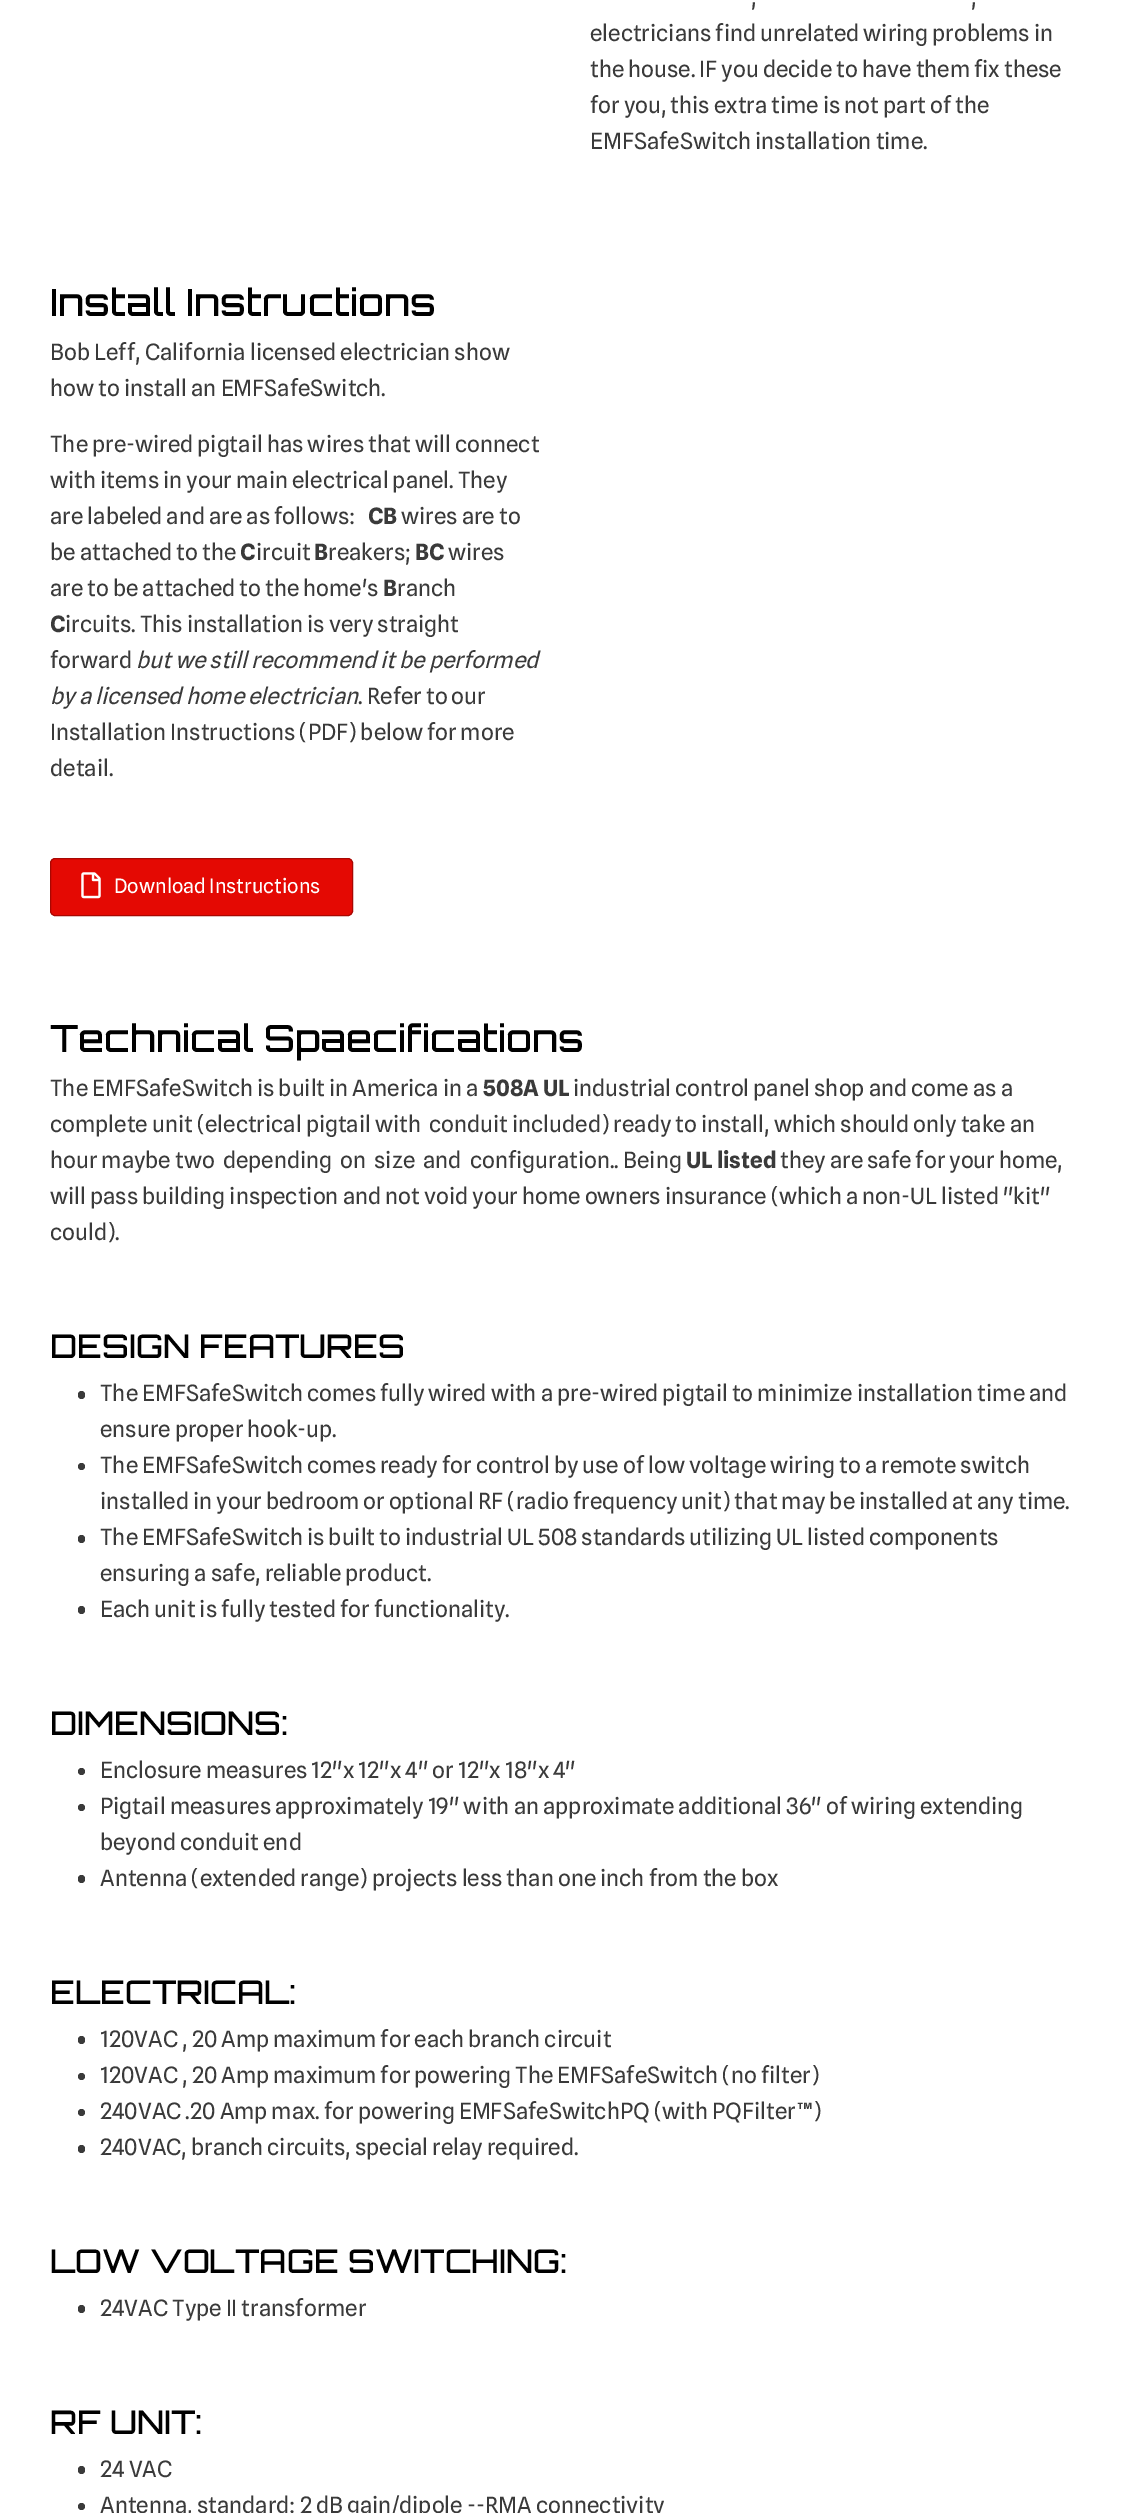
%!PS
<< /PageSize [1130 2513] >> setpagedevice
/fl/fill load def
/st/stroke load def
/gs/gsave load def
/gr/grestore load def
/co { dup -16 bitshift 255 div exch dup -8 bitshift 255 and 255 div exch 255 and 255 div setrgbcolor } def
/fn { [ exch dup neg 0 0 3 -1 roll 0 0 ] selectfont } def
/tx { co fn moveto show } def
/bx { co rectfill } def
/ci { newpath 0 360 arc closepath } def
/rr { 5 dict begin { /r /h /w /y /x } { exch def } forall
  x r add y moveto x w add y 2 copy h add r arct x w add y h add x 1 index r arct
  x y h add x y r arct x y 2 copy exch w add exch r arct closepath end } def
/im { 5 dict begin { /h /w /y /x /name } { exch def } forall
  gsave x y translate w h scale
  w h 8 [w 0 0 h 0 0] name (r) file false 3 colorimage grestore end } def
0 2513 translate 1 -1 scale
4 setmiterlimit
0 0 1130 2513 16#FFFFFF bx
16#E40903 co
50.5 858.5 302 57 4.5 rr gs fl gr
16#A80702 co
st
(media/1.raw) 81 872 20 27 im
16#3A3A3A co
78 1391 7 8 3.5 rr fl
81.5 1466.5 3.5 ci fl
78 1535 7 8 3.5 rr fl
78 1606 7 8 3.5 rr fl
81.5 1771.5 3.5 ci fl
81.5 1807.5 3.5 ci fl
78 1875 7 8 3.5 rr fl
78 2036 7 8 3.5 rr fl
81.5 2076.5 3.5 ci fl
81.5 2112.5 3.5 ci fl
78 2145 7 8 3.5 rr fl
78 2305 7 8 3.5 rr fl
78 2466 7 8 3.5 rr fl
81.5 2506.5 3.5 ci fl
(,) 751 5 /SplineSans-Regular 22.5 16#3A3A3A tx
(,) 971 5 /SplineSans-Regular 22.5 16#3A3A3A tx
(electricians find unrelated wiring problems in) 590 41 /SplineSans-Regular 22.5 16#3A3A3A tx
(the house. IF you decide to have them fix these) 590 77 /SplineSans-Regular 22.5 16#3A3A3A tx
(for you, this extra time is not part of the) 590 113 /SplineSans-Regular 22.5 16#3A3A3A tx
(EMFSafeSwitch installation time.) 590 149 /SplineSans-Regular 22.5 16#3A3A3A tx
(Install Instructions) 50 316 /Orbitron-Medium 37.5 16#000000 tx
(Bob Leff, California licensed electrician show) 50 360 /SplineSans-Regular 22.5 16#3A3A3A tx
(how to install an EMFSafeSwitch.) 50 396 /SplineSans-Regular 22.5 16#3A3A3A tx
(The pre-wired pigtail has wires that will connect) 50 452 /SplineSans-Regular 22.5 16#3A3A3A tx
(with items in your main electrical panel. They) 50 488 /SplineSans-Regular 22.5 16#3A3A3A tx
(are labeled and are as follows:) 50 524 /SplineSans-Regular 22.5 16#3A3A3A tx
(CB) 368 524 /SplineSans-Bold 22.5 16#3A3A3A tx
(wires are to) 401 524 /SplineSans-Regular 22.5 16#3A3A3A tx
(be attached to the) 50 560 /SplineSans-Regular 22.5 16#3A3A3A tx
(C) 240 560 /SplineSans-Bold 22.5 16#3A3A3A tx
(ircuit) 256 560 /SplineSans-Regular 22.5 16#3A3A3A tx
(B) 314 560 /SplineSans-Bold 22.5 16#3A3A3A tx
(reakers;) 328 560 /SplineSans-Regular 22.5 16#3A3A3A tx
(BC) 415 560 /SplineSans-Bold 22.5 16#3A3A3A tx
(wires) 448 560 /SplineSans-Regular 22.5 16#3A3A3A tx
(are to be attached to the home's) 50 596 /SplineSans-Regular 22.5 16#3A3A3A tx
(B) 383 596 /SplineSans-Bold 22.5 16#3A3A3A tx
(ranch) 397 596 /SplineSans-Regular 22.5 16#3A3A3A tx
(C) 50 632 /SplineSans-Bold 22.5 16#3A3A3A tx
(ircuits. This installation is very straight) 65 632 /SplineSans-Regular 22.5 16#3A3A3A tx
(forward) 50 668 /SplineSans-Regular 22.5 16#3A3A3A tx
(but we still recommend it be performed) 136 668 /SplineSans-Italic 22.5 16#3A3A3A tx
(by a licensed home electrician) 50 704 /SplineSans-Italic 22.5 16#3A3A3A tx
(. Refer to our) 358 704 /SplineSans-Regular 22.5 16#3A3A3A tx
(Installation Instructions \(PDF\) below for more) 50 740 /SplineSans-Regular 22.5 16#3A3A3A tx
(detail.) 50 776 /SplineSans-Regular 22.5 16#3A3A3A tx
(Download Instructions) 114 893 /SplineSans-Regular 20 16#FFFFFF tx
(Technical Spaecifications) 50 1052 /Orbitron-Medium 37.5 16#000000 tx
(The EMFSafeSwitch is built in America in a) 50 1096 /SplineSans-Regular 22.5 16#3A3A3A tx
(508A UL) 483 1096 /SplineSans-Bold 22.5 16#3A3A3A tx
(industrial control panel shop and come as a) 573 1096 /SplineSans-Regular 22.5 16#3A3A3A tx
(complete unit \(electrical pigtail with  conduit included\) ready to install, which should only take an) 50 1132 /SplineSans-Regular 22.5 16#3A3A3A tx
(hour maybe two  depending  on  size  and  configuration.. Being) 50 1168 /SplineSans-Regular 22.5 16#3A3A3A tx
(UL listed) 686 1168 /SplineSans-Bold 22.5 16#3A3A3A tx
(they are safe for your home,) 780 1168 /SplineSans-Regular 22.5 16#3A3A3A tx
(will pass building inspection and not void your home owners insurance \(which a non-UL listed "kit") 50 1204 /SplineSans-Regular 22.5 16#3A3A3A tx
(could\).) 50 1240 /SplineSans-Regular 22.5 16#3A3A3A tx
(DESIGN FEATURES) 50 1358 /Orbitron-Medium 32.5 16#000000 tx
(The EMFSafeSwitch comes fully wired with a pre-wired pigtail to minimize installation time and) 100 1401 /SplineSans-Regular 22.5 16#3A3A3A tx
(ensure proper hook-up.) 100 1437 /SplineSans-Regular 22.5 16#3A3A3A tx
(The EMFSafeSwitch comes ready for control by use of low voltage wiring to a remote switch) 100 1473 /SplineSans-Regular 22.5 16#3A3A3A tx
(installed in your bedroom or optional RF \(radio frequency unit\) that may be installed at any time.) 100 1509 /SplineSans-Regular 22.5 16#3A3A3A tx
(The EMFSafeSwitch is built to industrial UL 508 standards utilizing UL listed components) 100 1545 /SplineSans-Regular 22.5 16#3A3A3A tx
(ensuring a safe, reliable product.) 100 1581 /SplineSans-Regular 22.5 16#3A3A3A tx
(Each unit is fully tested for functionality.) 100 1617 /SplineSans-Regular 22.5 16#3A3A3A tx
(DIMENSIONS:) 50 1735 /Orbitron-Medium 32.5 16#000000 tx
(Enclosure measures 12"x 12"x 4" or 12"x 18"x 4") 100 1778 /SplineSans-Regular 22.5 16#3A3A3A tx
(Pigtail measures approximately 19" with an approximate additional 36" of wiring extending) 100 1814 /SplineSans-Regular 22.5 16#3A3A3A tx
(beyond conduit end) 100 1850 /SplineSans-Regular 22.5 16#3A3A3A tx
(Antenna \(extended range\) projects less than one inch from the box) 100 1886 /SplineSans-Regular 22.5 16#3A3A3A tx
(ELECTRICAL:) 50 2004 /Orbitron-Medium 32.5 16#000000 tx
(120VAC , 20 Amp maximum for each branch circuit) 100 2047 /SplineSans-Regular 22.5 16#3A3A3A tx
(120VAC , 20 Amp maximum for powering The EMFSafeSwitch \(no filter\)) 100 2083 /SplineSans-Regular 22.5 16#3A3A3A tx
(240VAC .20 Amp max. for powering EMFSafeSwitchPQ \(with PQFilter™\)) 100 2119 /SplineSans-Regular 22.5 16#3A3A3A tx
(240VAC, branch circuits, special relay required.) 100 2155 /SplineSans-Regular 22.5 16#3A3A3A tx
(LOW VOLTAGE SWITCHING:) 50 2273 /Orbitron-Medium 32.5 16#000000 tx
(24VAC Type II transformer) 100 2316 /SplineSans-Regular 22.5 16#3A3A3A tx
(RF UNIT:) 50 2434 /Orbitron-Medium 32.5 16#000000 tx
(24 VAC) 100 2477 /SplineSans-Regular 22.5 16#3A3A3A tx
(Antenna, standard: 2 dB gain/dipole --RMA connectivity) 100 2513 /SplineSans-Regular 22.5 16#3A3A3A tx
showpage
